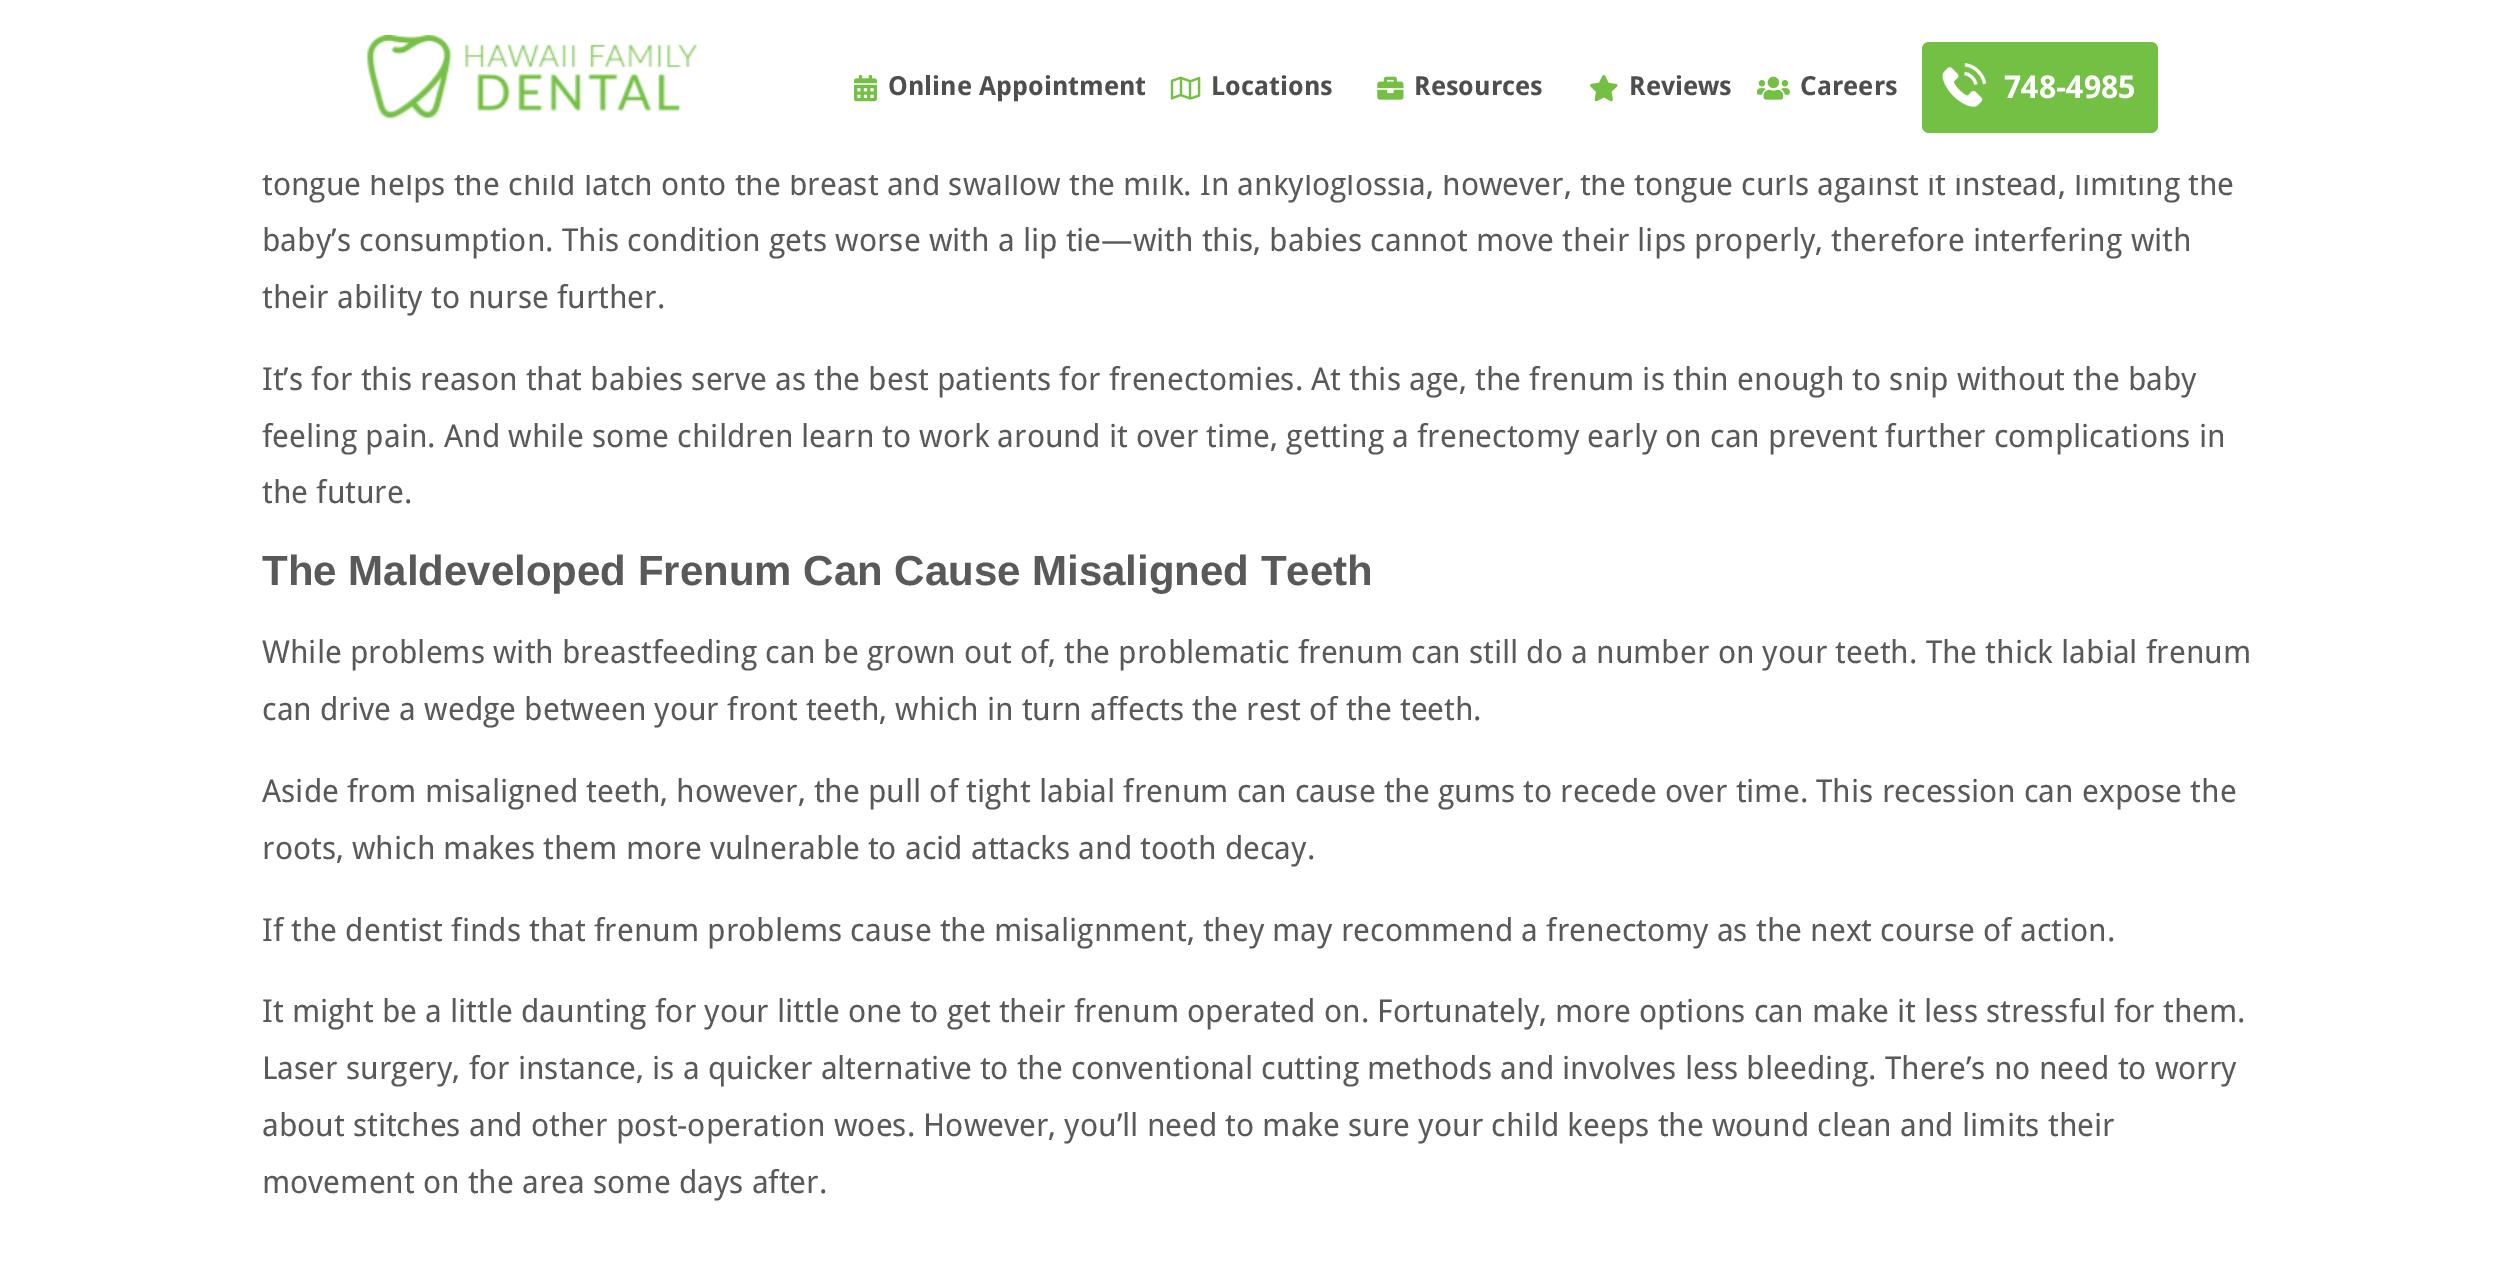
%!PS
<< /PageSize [2517 1266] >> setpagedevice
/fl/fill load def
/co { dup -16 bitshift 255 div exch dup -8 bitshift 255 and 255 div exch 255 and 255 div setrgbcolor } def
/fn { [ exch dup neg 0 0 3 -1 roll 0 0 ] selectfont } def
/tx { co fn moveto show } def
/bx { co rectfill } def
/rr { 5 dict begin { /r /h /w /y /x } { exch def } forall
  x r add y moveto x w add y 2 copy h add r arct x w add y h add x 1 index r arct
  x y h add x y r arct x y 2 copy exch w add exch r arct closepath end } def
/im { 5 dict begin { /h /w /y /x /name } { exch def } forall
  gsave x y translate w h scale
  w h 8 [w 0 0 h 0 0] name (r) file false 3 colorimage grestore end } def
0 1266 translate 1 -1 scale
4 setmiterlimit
0 0 2517 1266 16#FFFFFF bx
(media/1.raw) 367 35 330 84 im
(media/2.raw) 854 75 23 27 im
(media/3.raw) 1170 76 31 24 im
(media/4.raw) 1377 76 27 24 im
(media/5.raw) 1590 75 28 27 im
(media/6.raw) 1757 76 33 24 im
16#74C045 co
1922 42 236 91 7 rr fl
(media/7.raw) 1942 63 45 44 im
(Online Appointment) 888 95 /DroidSans-Bold 26.25 16#4E4E4E tx
(Locations) 1211 95 /DroidSans-Bold 26.25 16#4E4E4E tx
(Resources) 1414 95 /DroidSans-Bold 26.25 16#4E4E4E tx
(Reviews) 1629 95 /DroidSans-Bold 26.25 16#4E4E4E tx
(Careers) 1800 95 /DroidSans-Bold 26.25 16#4E4E4E tx
(748-4985) 2004 98 /DroidSans-Bold 31.5 16#FFFFFF tx
(tongue helps the child latch onto the breast and swallow the milk. In ankyloglossia, however, the tongue curls against it instead, limiting the) 262 195 /DroidSans-Regular 31.5 16#595959 tx
265 171 1940 4 16#FFFFFF bx
(baby’s consumption. This condition gets worse with a lip tie—with this, babies cannot move their lips properly, therefore interfering with) 262 251 /DroidSans-Regular 31.5 16#595959 tx
(their ability to nurse further.) 262 308 /DroidSans-Regular 31.5 16#595959 tx
(It’s for this reason that babies serve as the best patients for frenectomies. At this age, the frenum is thin enough to snip without the baby) 262 390 /DroidSans-Regular 31.5 16#595959 tx
(feeling pain. And while some children learn to work around it over time, getting a frenectomy early on can prevent further complications in) 262 447 /DroidSans-Regular 31.5 16#595959 tx
(the future.) 262 503 /DroidSans-Regular 31.5 16#595959 tx
(The Maldeveloped Frenum Can Cause Misaligned Teeth) 262 585 /LiberationSans-Bold 42 16#595959 tx
(While problems with breastfeeding can be grown out of, the problematic frenum can still do a number on your teeth. The thick labial frenum) 262 663 /DroidSans-Regular 31.5 16#595959 tx
(can drive a wedge between your front teeth, which in turn affects the rest of the teeth.) 262 720 /DroidSans-Regular 31.5 16#595959 tx
(Aside from misaligned teeth, however, the pull of tight labial frenum can cause the gums to recede over time. This recession can expose the) 262 802 /DroidSans-Regular 31.5 16#595959 tx
(roots, which makes them more vulnerable to acid attacks and tooth decay.) 262 859 /DroidSans-Regular 31.5 16#595959 tx
(If the dentist finds that frenum problems cause the misalignment, they may recommend a frenectomy as the next course of action.) 262 941 /DroidSans-Regular 31.5 16#595959 tx
(It might be a little daunting for your little one to get their frenum operated on. Fortunately, more options can make it less stressful for them.) 262 1022 /DroidSans-Regular 31.5 16#595959 tx
(Laser surgery, for instance, is a quicker alternative to the conventional cutting methods and involves less bleeding. There’s no need to worry) 262 1079 /DroidSans-Regular 31.5 16#595959 tx
(about stitches and other post-operation woes. However, you’ll need to make sure your child keeps the wound clean and limits their) 262 1136 /DroidSans-Regular 31.5 16#595959 tx
(movement on the area some days after.) 262 1193 /DroidSans-Regular 31.5 16#595959 tx
showpage
